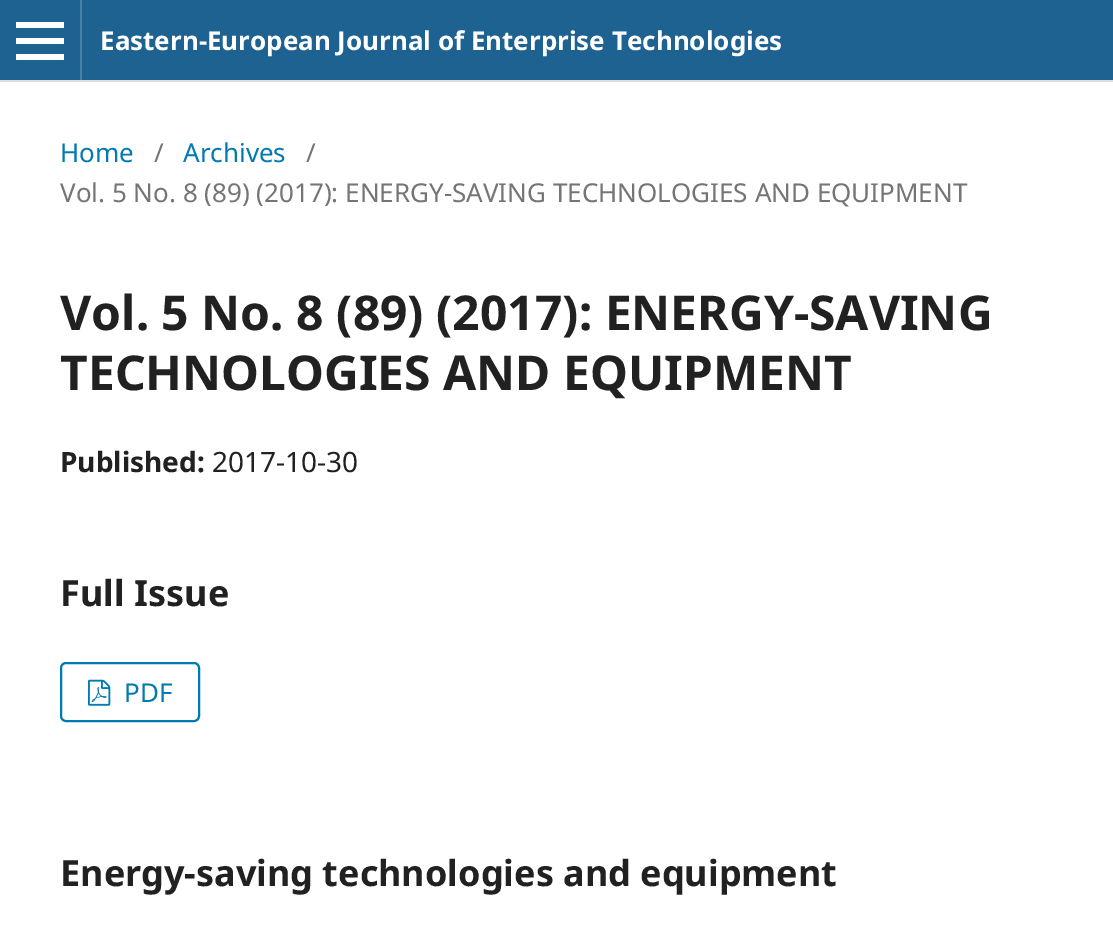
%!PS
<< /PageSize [1113 936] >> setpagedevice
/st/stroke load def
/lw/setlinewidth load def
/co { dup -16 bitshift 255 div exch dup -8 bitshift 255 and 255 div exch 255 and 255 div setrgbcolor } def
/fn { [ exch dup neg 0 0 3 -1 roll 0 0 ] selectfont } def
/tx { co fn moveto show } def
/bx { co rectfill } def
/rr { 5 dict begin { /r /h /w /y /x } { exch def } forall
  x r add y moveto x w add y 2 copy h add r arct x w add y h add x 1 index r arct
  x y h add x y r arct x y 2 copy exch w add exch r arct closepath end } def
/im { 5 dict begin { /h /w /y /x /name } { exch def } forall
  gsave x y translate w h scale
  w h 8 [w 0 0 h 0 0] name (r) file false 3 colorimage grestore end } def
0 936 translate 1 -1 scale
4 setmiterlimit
0 0 1113 936 16#FFFFFF bx
0 0 1113 80 16#1E6292 bx
0 80 1113 2 16#DDDDDD bx
80 0 2 80 16#4B81A8 bx
16 54 48 6 16#FFFFFF bx
16 22 48 6 16#FFFFFF bx
16 38 48 6 16#FFFFFF bx
16#007AB2 co
2 lw
61 663 138 58 5 rr st
(media/1.raw) 88 679 23 27 im
(Eastern-European Journal of Enterprise Technologies) 100 50 /NotoSans-Bold 26 16#FFFFFF tx
(Home) 60 162 /NotoSans-Regular 26 16#007AB2 tx
(/) 154 162 /NotoSans-Regular 26 16#757575 tx
(Archives) 183 162 /NotoSans-Regular 26 16#007AB2 tx
(/) 306 162 /NotoSans-Regular 26 16#757575 tx
(Vol. 5 No. 8 \(89\) \(2017\): ENERGY-SAVING TECHNOLOGIES AND EQUIPMENT) 60 202 /NotoSans-Regular 26 16#757575 tx
(Vol. 5 No. 8 \(89\) \(2017\): ENERGY-SAVING) 60 330 /NotoSans-Bold 48 16#212121 tx
(TECHNOLOGIES AND EQUIPMENT) 60 390 /NotoSans-Bold 48 16#212121 tx
(Published:) 60 472 /NotoSans-Bold 28 16#212121 tx
(2017-10-30) 212 472 /NotoSans-Regular 28 16#212121 tx
(Full Issue) 60 606 /NotoSans-Bold 36 16#212121 tx
(PDF) 124 702 /NotoSans-Regular 26 16#007AB2 tx
(Energy-saving technologies and equipment) 60 886 /NotoSans-Bold 36 16#212121 tx
showpage
